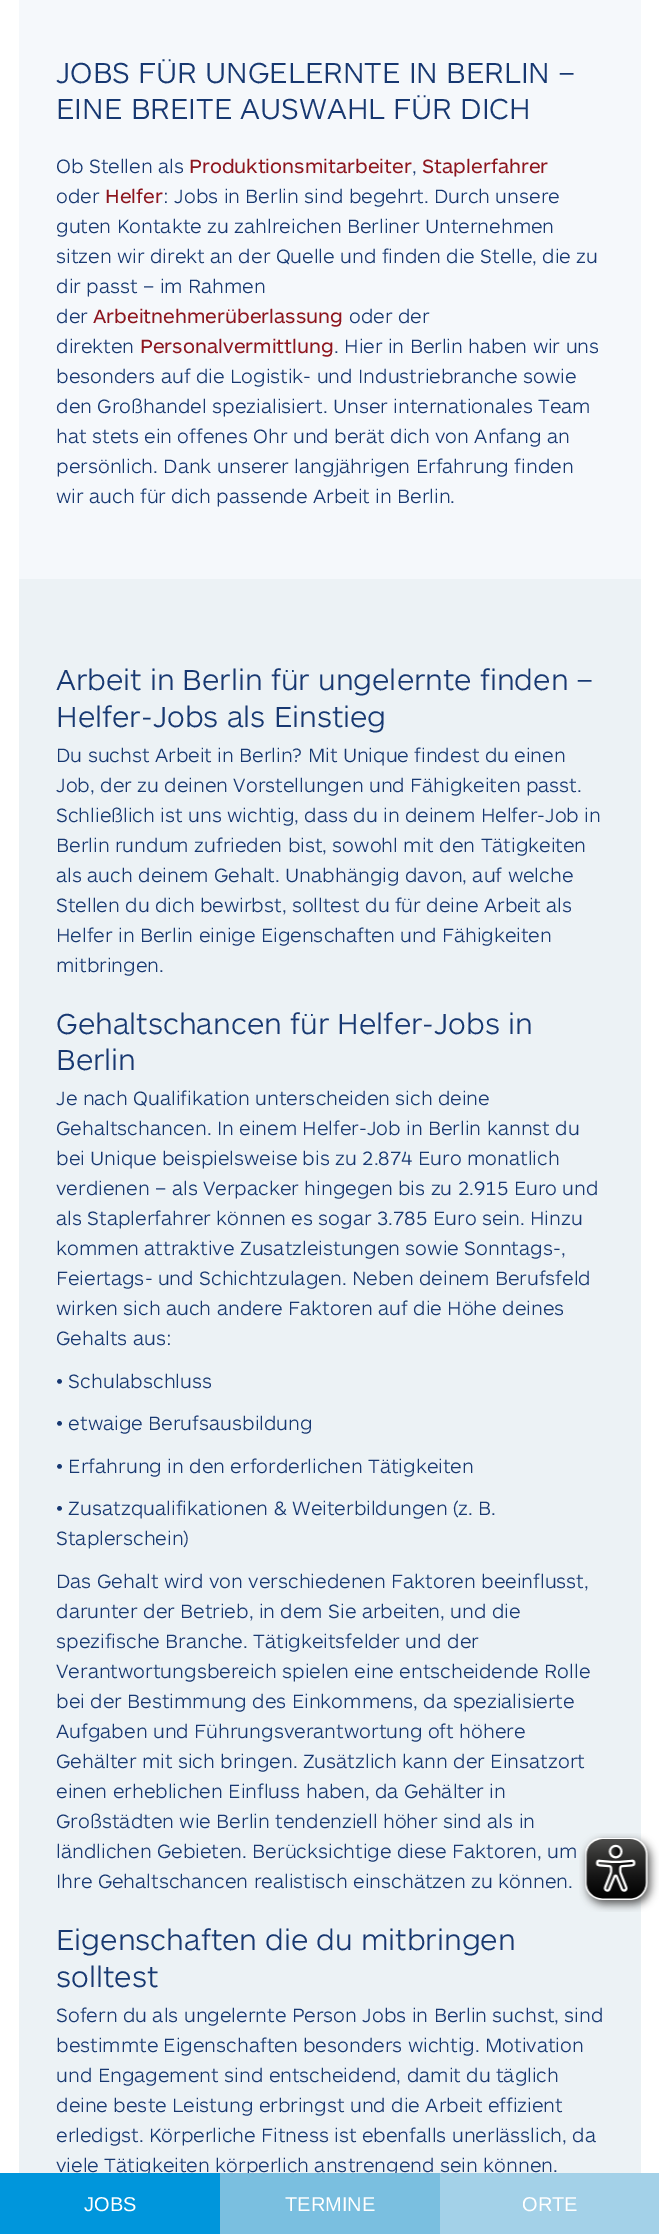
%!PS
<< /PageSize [659 2234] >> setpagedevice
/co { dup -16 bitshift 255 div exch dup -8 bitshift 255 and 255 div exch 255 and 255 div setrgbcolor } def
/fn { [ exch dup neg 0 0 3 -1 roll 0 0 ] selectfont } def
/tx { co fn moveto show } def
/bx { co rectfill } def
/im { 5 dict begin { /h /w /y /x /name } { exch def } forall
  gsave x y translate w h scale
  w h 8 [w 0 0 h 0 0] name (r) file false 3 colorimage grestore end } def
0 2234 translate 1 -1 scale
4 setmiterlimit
0 0 659 2234 16#FFFFFF bx
19 0 622 579 16#F5F8FB bx
19 579 622 1594 16#ECF2F5 bx
(media/1.raw) 579 1833 80 79 im
(JOBS FÜR UNGELERNTE IN BERLIN –) 56 83 /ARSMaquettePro-Light 30 16#173871 tx
(EINE BREITE AUSWAHL FÜR DICH) 56 119 /ARSMaquettePro-Light 30 16#173871 tx
(Ob Stellen als) 56 173 /ARSMaquettePro-Light 20 16#173871 tx
(Produktionsmitarbeiter) 189 173 /ARSMaquettePro-Regular 20 16#8D151E tx
(,) 412 173 /ARSMaquettePro-Light 20 16#173871 tx
(Staplerfahrer) 422 173 /ARSMaquettePro-Regular 20 16#8D151E tx
(oder) 56 203 /ARSMaquettePro-Light 20 16#173871 tx
(Helfer) 105 203 /ARSMaquettePro-Regular 20 16#8D151E tx
(: Jobs in Berlin sind begehrt. Durch unsere) 163 203 /ARSMaquettePro-Light 20 16#173871 tx
(guten Kontakte zu zahlreichen Berliner Unternehmen) 56 233 /ARSMaquettePro-Light 20 16#173871 tx
(sitzen wir direkt an der Quelle und finden die Stelle, die zu) 56 263 /ARSMaquettePro-Light 20 16#173871 tx
(dir passt – im Rahmen) 56 293 /ARSMaquettePro-Light 20 16#173871 tx
(der) 56 323 /ARSMaquettePro-Light 20 16#173871 tx
(Arbeitnehmerüberlassung) 93 323 /ARSMaquettePro-Regular 20 16#8D151E tx
(oder der) 349 323 /ARSMaquettePro-Light 20 16#173871 tx
(direkten) 56 353 /ARSMaquettePro-Light 20 16#173871 tx
(Personalvermittlung) 140 353 /ARSMaquettePro-Regular 20 16#8D151E tx
(. Hier in Berlin haben wir uns) 334 353 /ARSMaquettePro-Light 20 16#173871 tx
(besonders auf die Logistik- und Industriebranche sowie) 56 383 /ARSMaquettePro-Light 20 16#173871 tx
(den Großhandel spezialisiert. Unser internationales Team) 56 413 /ARSMaquettePro-Light 20 16#173871 tx
(hat stets ein offenes Ohr und berät dich von Anfang an) 56 443 /ARSMaquettePro-Light 20 16#173871 tx
(persönlich. Dank unserer langjährigen Erfahrung finden) 56 473 /ARSMaquettePro-Light 20 16#173871 tx
(wir auch für dich passende Arbeit in Berlin.) 56 503 /ARSMaquettePro-Light 20 16#173871 tx
(Arbeit in Berlin für ungelernte finden –) 56 690 /ARSMaquettePro-Light 30 16#173871 tx
(Helfer-Jobs als Einstieg) 56 727 /ARSMaquettePro-Light 30 16#173871 tx
(Du suchst Arbeit in Berlin? Mit Unique findest du einen) 56 762 /ARSMaquettePro-Light 20 16#173871 tx
(Job, der zu deinen Vorstellungen und Fähigkeiten passt.) 56 792 /ARSMaquettePro-Light 20 16#173871 tx
(Schließlich ist uns wichtig, dass du in deinem Helfer-Job in) 56 822 /ARSMaquettePro-Light 20 16#173871 tx
(Berlin rundum zufrieden bist, sowohl mit den Tätigkeiten) 56 852 /ARSMaquettePro-Light 20 16#173871 tx
(als auch deinem Gehalt. Unabhängig davon, auf welche) 56 882 /ARSMaquettePro-Light 20 16#173871 tx
(Stellen du dich bewirbst, solltest du für deine Arbeit als) 56 912 /ARSMaquettePro-Light 20 16#173871 tx
(Helfer in Berlin einige Eigenschaften und Fähigkeiten) 56 942 /ARSMaquettePro-Light 20 16#173871 tx
(mitbringen.) 56 972 /ARSMaquettePro-Light 20 16#173871 tx
(Gehaltschancen für Helfer-Jobs in) 56 1034 /ARSMaquettePro-Light 30 16#173871 tx
(Berlin) 56 1070 /ARSMaquettePro-Light 30 16#173871 tx
(Je nach Qualifikation unterscheiden sich deine) 56 1105 /ARSMaquettePro-Light 20 16#173871 tx
(Gehaltschancen. In einem Helfer-Job in Berlin kannst du) 56 1135 /ARSMaquettePro-Light 20 16#173871 tx
(bei Unique beispielsweise bis zu 2.874 Euro monatlich) 56 1165 /ARSMaquettePro-Light 20 16#173871 tx
(verdienen – als Verpacker hingegen bis zu 2.915 Euro und) 56 1195 /ARSMaquettePro-Light 20 16#173871 tx
(als Staplerfahrer können es sogar 3.785 Euro sein. Hinzu) 56 1225 /ARSMaquettePro-Light 20 16#173871 tx
(kommen attraktive Zusatzleistungen sowie Sonntags-,) 56 1255 /ARSMaquettePro-Light 20 16#173871 tx
(Feiertags- und Schichtzulagen. Neben deinem Berufsfeld) 56 1285 /ARSMaquettePro-Light 20 16#173871 tx
(wirken sich auch andere Faktoren auf die Höhe deines) 56 1315 /ARSMaquettePro-Light 20 16#173871 tx
(Gehalts aus:) 56 1345 /ARSMaquettePro-Light 20 16#173871 tx
(• Schulabschluss) 56 1388 /ARSMaquettePro-Light 20 16#173871 tx
(• etwaige Berufsausbildung) 56 1430 /ARSMaquettePro-Light 20 16#173871 tx
(• Erfahrung in den erforderlichen Tätigkeiten) 56 1473 /ARSMaquettePro-Light 20 16#173871 tx
(• Zusatzqualifikationen & Weiterbildungen \(z. B.) 56 1515 /ARSMaquettePro-Light 20 16#173871 tx
(Staplerschein\)) 56 1545 /ARSMaquettePro-Light 20 16#173871 tx
(Das Gehalt wird von verschiedenen Faktoren beeinflusst,) 56 1588 /ARSMaquettePro-Light 20 16#173871 tx
(darunter der Betrieb, in dem Sie arbeiten, und die) 56 1618 /ARSMaquettePro-Light 20 16#173871 tx
(spezifische Branche. Tätigkeitsfelder und der) 56 1648 /ARSMaquettePro-Light 20 16#173871 tx
(Verantwortungsbereich spielen eine entscheidende Rolle) 56 1678 /ARSMaquettePro-Light 20 16#173871 tx
(bei der Bestimmung des Einkommens, da spezialisierte) 56 1708 /ARSMaquettePro-Light 20 16#173871 tx
(Aufgaben und Führungsverantwortung oft höhere) 56 1738 /ARSMaquettePro-Light 20 16#173871 tx
(Gehälter mit sich bringen. Zusätzlich kann der Einsatzort) 56 1768 /ARSMaquettePro-Light 20 16#173871 tx
(einen erheblichen Einfluss haben, da Gehälter in) 56 1798 /ARSMaquettePro-Light 20 16#173871 tx
(Großstädten wie Berlin tendenziell höher sind als in) 56 1828 /ARSMaquettePro-Light 20 16#173871 tx
(ländlichen Gebieten. Berücksichtige diese Faktoren, um) 56 1858 /ARSMaquettePro-Light 20 16#173871 tx
(Ihre Gehaltschancen realistisch einschätzen zu können.) 56 1888 /ARSMaquettePro-Light 20 16#173871 tx
(Eigenschaften die du mitbringen) 56 1950 /ARSMaquettePro-Light 30 16#173871 tx
(solltest) 56 1987 /ARSMaquettePro-Light 30 16#173871 tx
(Sofern du als ungelernte Person Jobs in Berlin suchst, sind) 56 2022 /ARSMaquettePro-Light 20 16#173871 tx
(bestimmte Eigenschaften besonders wichtig. Motivation) 56 2052 /ARSMaquettePro-Light 20 16#173871 tx
(und Engagement sind entscheidend, damit du täglich) 56 2082 /ARSMaquettePro-Light 20 16#173871 tx
(deine beste Leistung erbringst und die Arbeit effizient) 56 2112 /ARSMaquettePro-Light 20 16#173871 tx
(erledigst. Körperliche Fitness ist ebenfalls unerlässlich, da) 56 2142 /ARSMaquettePro-Light 20 16#173871 tx
(viele Tätigkeiten körperlich anstrengend sein können.) 56 2172 /ARSMaquettePro-Light 20 16#173871 tx
0 2173 220 61 16#0096DC bx
(JOBS) 84 2211 /LiberationSans-Regular 20 16#FFFFFF tx
220 2173 220 61 16#7ABFE0 bx
(TERMINE) 285 2211 /LiberationSans-Regular 20 16#FFFFFF tx
440 2173 219 61 16#A3D1E8 bx
(ORTE) 522 2211 /LiberationSans-Regular 20 16#FFFFFF tx
showpage
